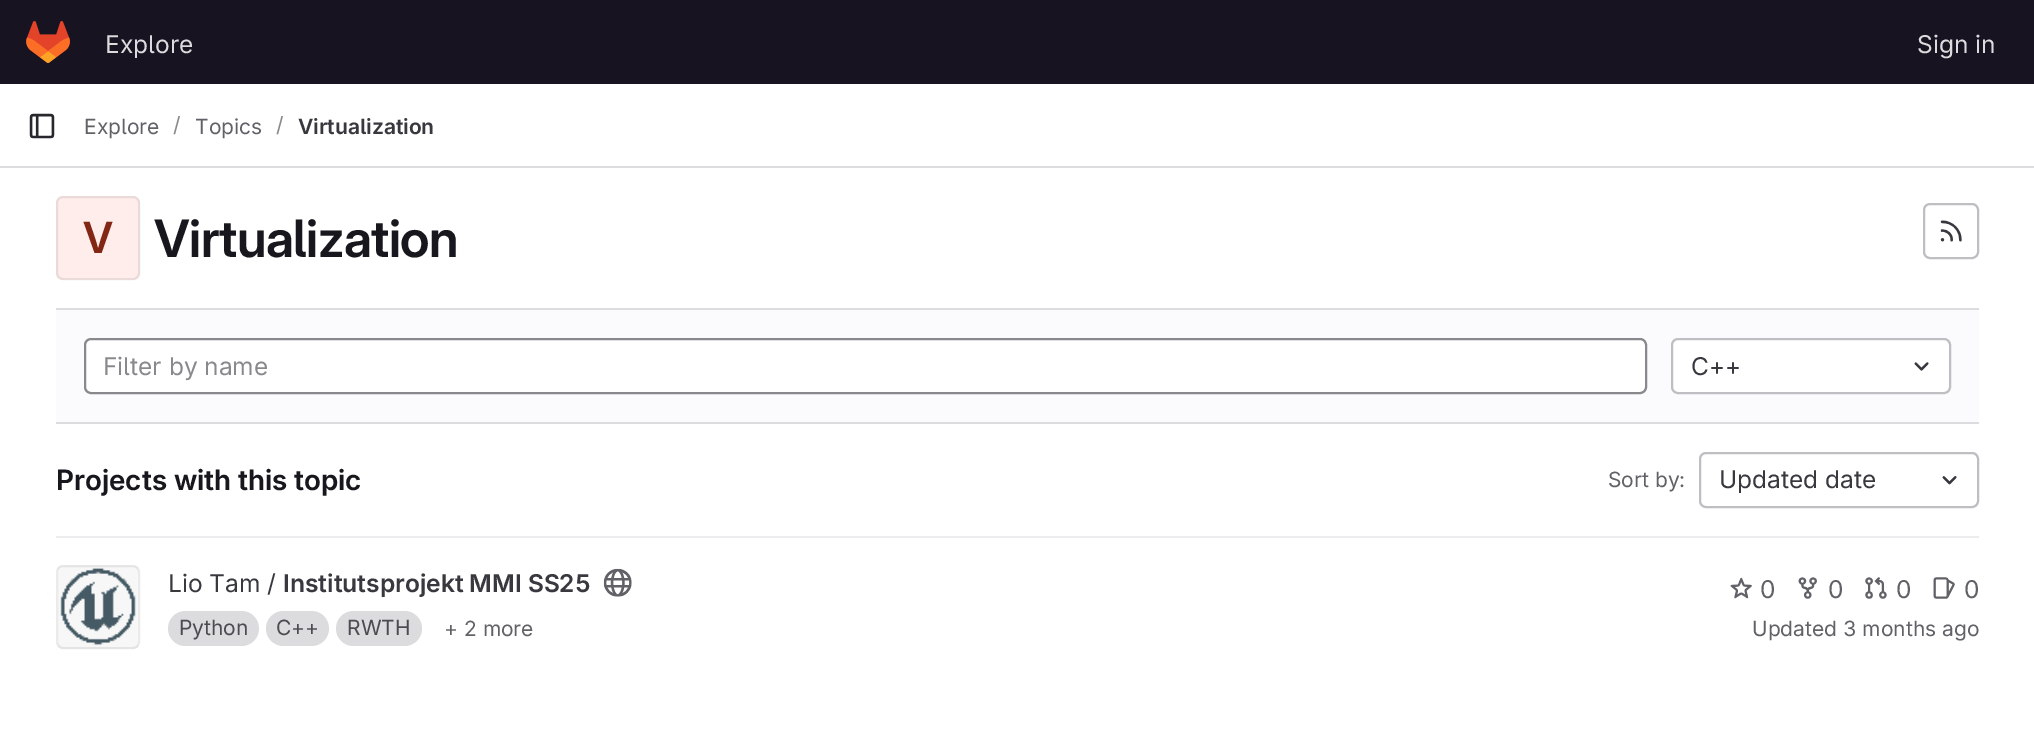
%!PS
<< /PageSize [2034 740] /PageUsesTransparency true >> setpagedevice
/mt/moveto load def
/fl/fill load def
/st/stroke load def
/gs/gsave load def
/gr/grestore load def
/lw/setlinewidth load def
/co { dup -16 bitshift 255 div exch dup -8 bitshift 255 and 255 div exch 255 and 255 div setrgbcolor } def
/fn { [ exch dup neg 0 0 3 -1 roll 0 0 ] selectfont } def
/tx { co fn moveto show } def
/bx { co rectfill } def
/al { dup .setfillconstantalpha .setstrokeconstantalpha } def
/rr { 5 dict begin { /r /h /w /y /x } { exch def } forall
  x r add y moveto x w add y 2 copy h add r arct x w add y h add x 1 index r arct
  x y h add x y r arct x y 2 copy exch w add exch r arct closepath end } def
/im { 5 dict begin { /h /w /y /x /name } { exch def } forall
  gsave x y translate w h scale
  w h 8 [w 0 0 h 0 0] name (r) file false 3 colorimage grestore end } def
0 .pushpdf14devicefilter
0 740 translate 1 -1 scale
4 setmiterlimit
0 0 2034 740 16#FFFFFF bx
0 0 2034 84 16#171321 bx
(media/1.raw) 26 21 44 42 im
0 166 2034 2 16#DCDCDE bx
(media/2.raw) 29 113 26 26 im
16#FEEDEB co
56 196 84 84 7 rr fl
0.08 al
16#050506 co
2 lw
57 197 82 82 6 rr st
1 al
16#BFBFC3 co
1924 204 54 54 6 rr st
(media/3.raw) 1940 220 22 22 im
56 310 1923 112 16#FBFAFD bx
56 308 1923 2 16#DCDCDE bx
56 422 1923 2 16#DCDCDE bx
16#FFFFFF co
85 339 1561 54 6 rr gs fl gr
16#89888D co
st
16#FFFFFF co
1672 339 278 54 6 rr gs fl gr
16#BFBFC3 co
st
(media/4.raw) 1914 362 15 9 im
56 536 1923 2 16#ECECEF bx
16#BFBFC3 co
1700 453 278 54 6 rr st
(media/5.raw) 1942 476 15 9 im
(media/6.raw) 58 565 80 84 im
0.08 al
16#050506 co
57 566 82 82 6 rr st
1 al
(media/7.raw) 603 568 29 29 im
16#DCDCDE co
168 611 91 35 17.5 rr fl
266 611 63 35 17.5 rr fl
336 611 86 35 17.5 rr fl
(media/8.raw) 1730 577 22 22 im
(media/9.raw) 1798 577 19 22 im
(media/10.raw) 1865 577 22 22 im
(media/11.raw) 1933 577 22 22 im
(Explore) 105 53 /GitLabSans-Regular 24.5 16#DCDCDE tx
(Sign in) 1917 53 /GitLabSans-Regular 24.5 16#DCDCDE tx
(Explore) 84 134 /GitLabSans-Regular 21 16#626168 tx
(/) 173 132 /GitLabSans-Regular 21 16#89888D tx
(Topics) 195 134 /GitLabSans-Regular 21 16#626168 tx
(/) 276 132 /GitLabSans-Regular 21 16#89888D tx
(Virtualization) 298 134 /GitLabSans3-SemiBold 21 16#3A383F tx
/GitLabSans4-SemiBold 43 fn
16#812713 co
83 253 mt -.5 0 (V) ashow
/GitLabSans-SemiBold 51.5 fn
16#18171D co
154 257 mt -.5 0 (Virtualization) ashow
(Filter by name) 103 375 /GitLabSans-Regular 24.5 16#89888D tx
(C++) 1691 375 /GitLabSans-Regular 24.5 16#3A383F tx
(Projects with this topic) 56 490 /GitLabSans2-SemiBold 28 16#18171D tx
(Sort by:) 1608 487 /GitLabSans-Regular 21 16#626168 tx
(Updated date) 1719 488 /GitLabSans-Regular 24.5 16#3A383F tx
(Lio Tam /) 168 592 /GitLabSans-Regular 24.5 16#3A383F tx
(Institutsprojekt MMI SS25) 283 592 /GitLabSans3-SemiBold 24.5 16#3A383F tx
(Python) 179 635 /GitLabSans-Regular 21 16#4C4B51 tx
(C++) 276 635 /GitLabSans-Regular 21 16#4C4B51 tx
(RWTH) 347 635 /GitLabSans-Regular 21 16#4C4B51 tx
(+ 2 more) 444 636 /GitLabSans-Regular 21 16#626168 tx
(0) 1760 598 /GitLabSans-Regular 24.5 16#626168 tx
(0) 1828 598 /GitLabSans-Regular 24.5 16#626168 tx
(0) 1896 598 /GitLabSans-Regular 24.5 16#626168 tx
(0) 1964 598 /GitLabSans-Regular 24.5 16#626168 tx
(Updated 3 months ago) 1752 636 /GitLabSans-Regular 21 16#626168 tx
.poppdf14devicefilter showpage
